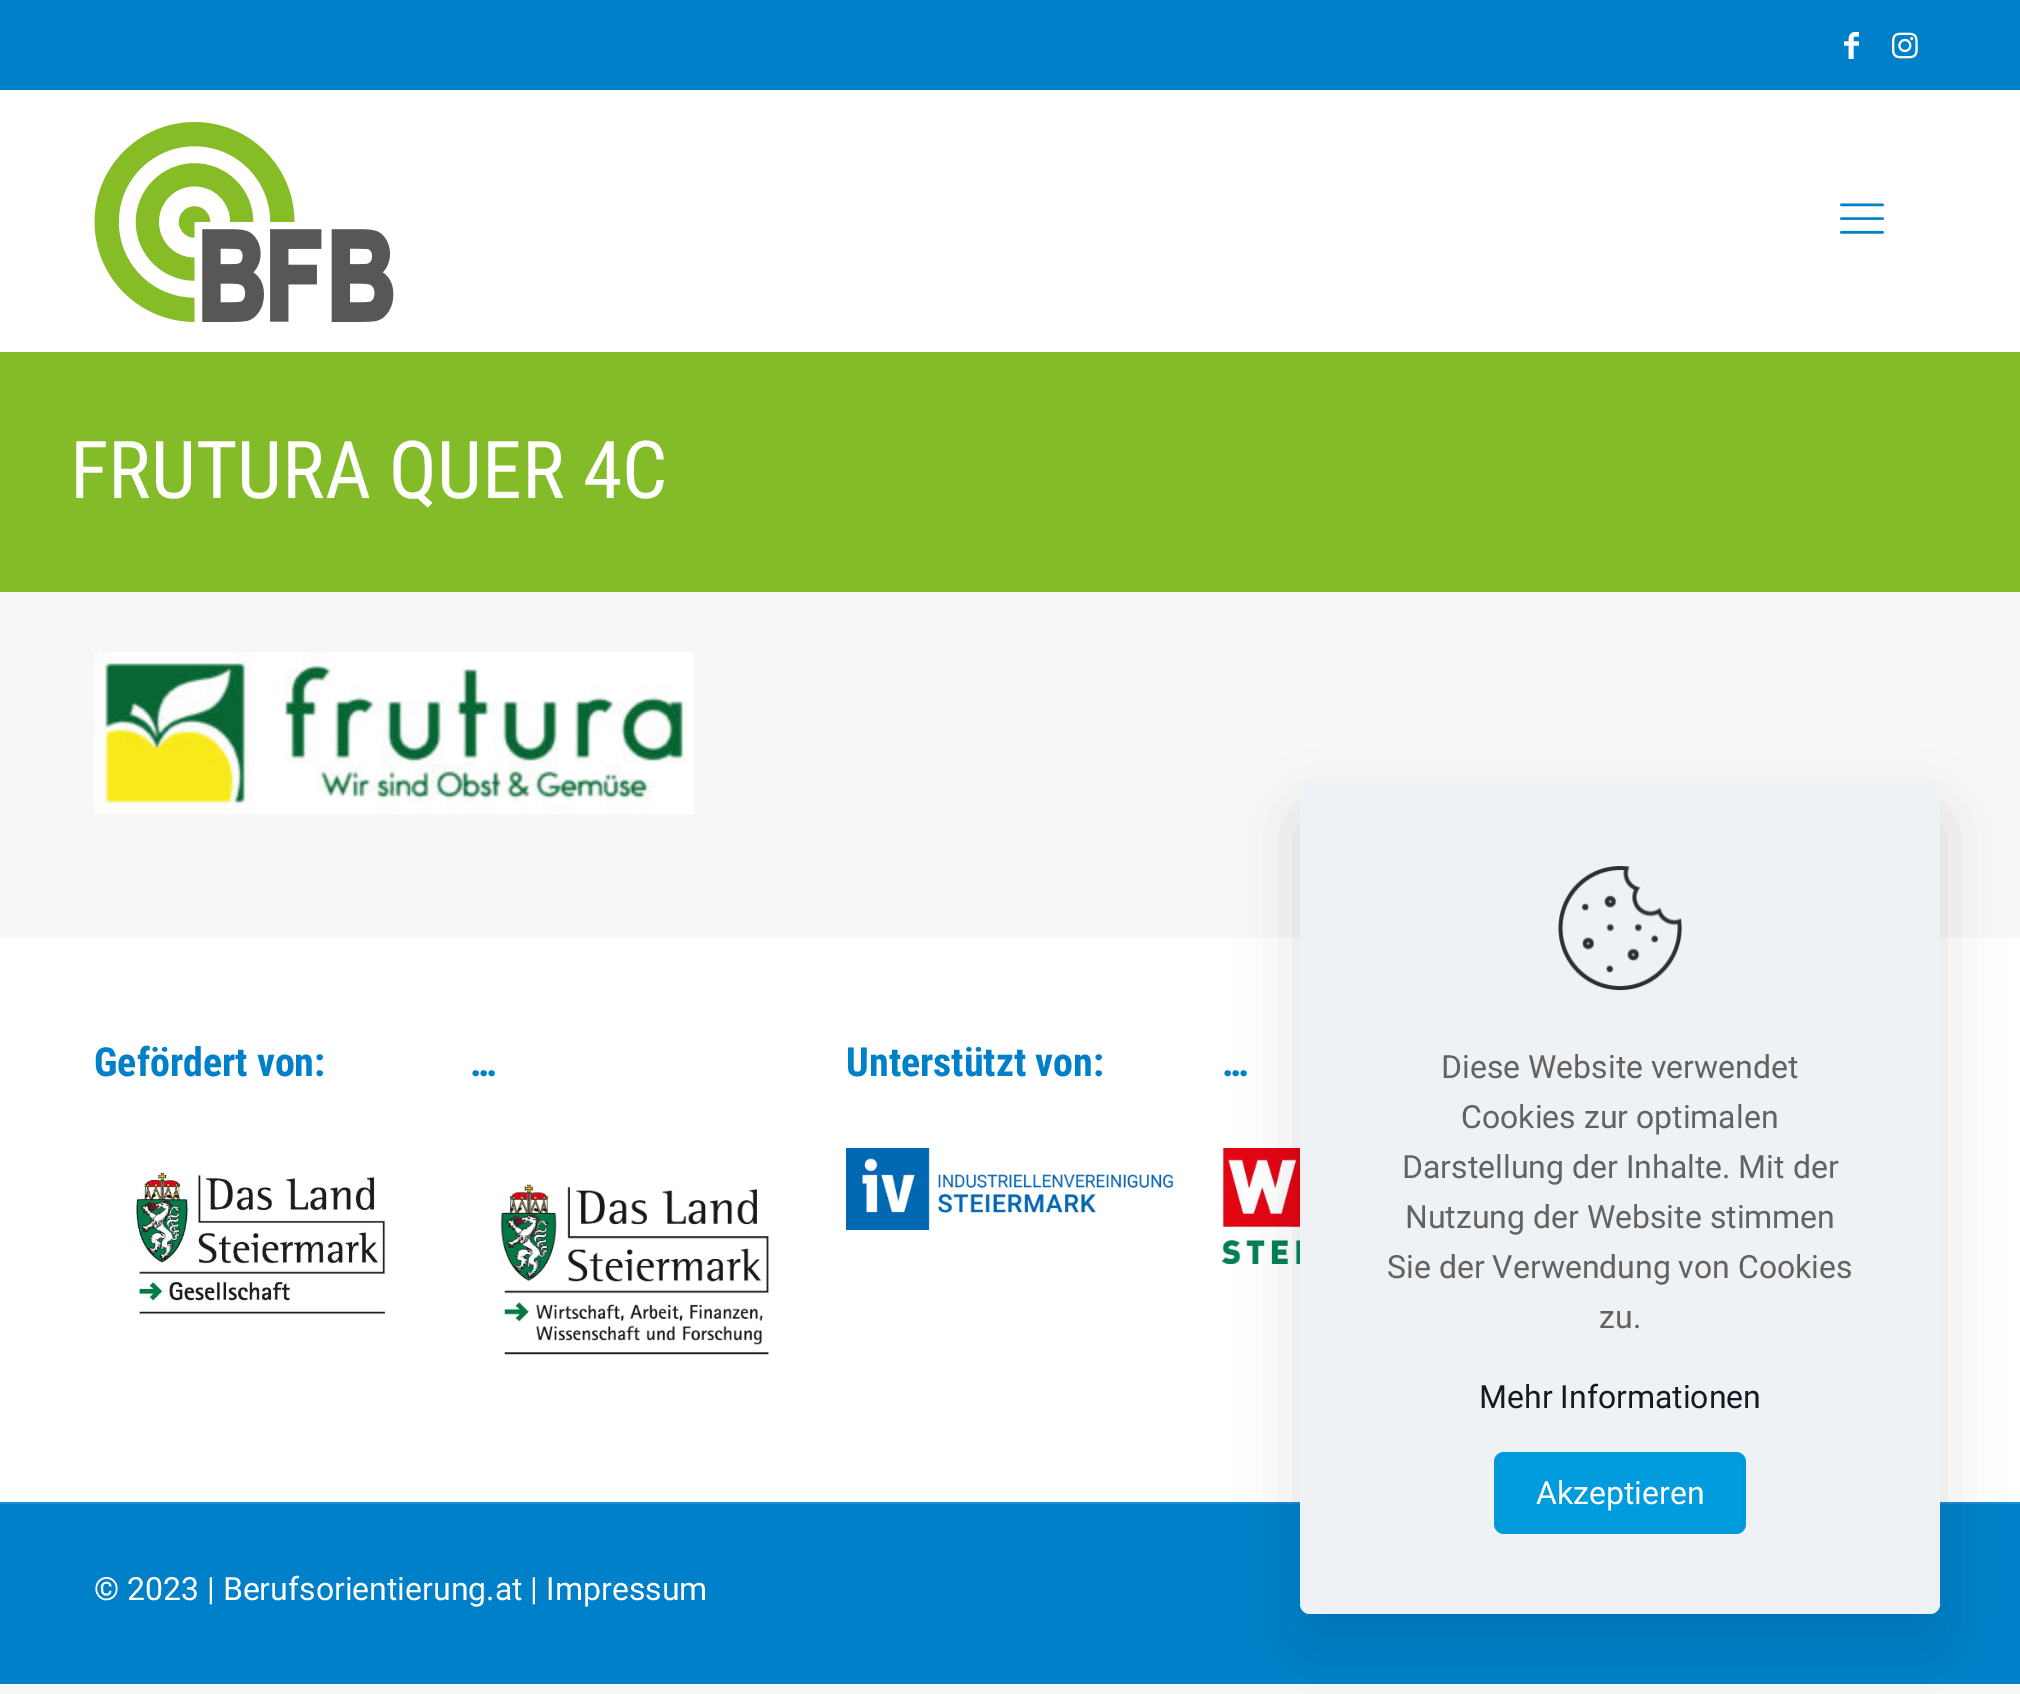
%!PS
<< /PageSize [2020 1694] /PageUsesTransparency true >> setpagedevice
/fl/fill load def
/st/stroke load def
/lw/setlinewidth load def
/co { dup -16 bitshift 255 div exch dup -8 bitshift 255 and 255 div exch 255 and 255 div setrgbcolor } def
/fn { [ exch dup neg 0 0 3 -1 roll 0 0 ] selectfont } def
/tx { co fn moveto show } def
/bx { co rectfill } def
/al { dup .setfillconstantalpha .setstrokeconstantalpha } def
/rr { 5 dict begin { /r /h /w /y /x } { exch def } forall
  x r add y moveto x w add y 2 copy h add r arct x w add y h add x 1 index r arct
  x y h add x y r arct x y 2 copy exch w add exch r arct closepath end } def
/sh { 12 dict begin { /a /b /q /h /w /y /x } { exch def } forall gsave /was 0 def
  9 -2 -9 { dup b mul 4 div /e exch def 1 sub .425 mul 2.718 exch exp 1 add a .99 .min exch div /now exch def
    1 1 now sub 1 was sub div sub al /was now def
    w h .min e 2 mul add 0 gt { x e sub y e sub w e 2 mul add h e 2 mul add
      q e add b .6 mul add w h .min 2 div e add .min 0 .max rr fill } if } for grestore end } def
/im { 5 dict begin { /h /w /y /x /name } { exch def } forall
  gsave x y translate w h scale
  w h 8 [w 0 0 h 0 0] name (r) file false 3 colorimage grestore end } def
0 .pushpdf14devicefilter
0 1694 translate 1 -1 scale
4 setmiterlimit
0 0 2020 1694 16#F7F7F7 bx
0 90 2020 262 16#FFFFFF bx
0 0 2020 90 16#0080C9 bx
(media/1.raw) 1844 32 15 27 im
(media/2.raw) 1892 32 26 27 im
(media/3.raw) 94 122 300 200 im
(media/4.raw) 1840 203 44 31 im
0 352 2020 240 16#83BC28 bx
(media/5.raw) 94 652 600 162 im
0 1504 2020 180 16#0080C9 bx
0 938 2020 564 16#FFFFFF bx
(media/6.raw) 135 1171 251 144 im
(media/7.raw) 500 1184 269 171 im
(media/8.raw) 846 1148 328 82 im
(media/9.raw) 1222 1148 78 116 im
0 1502 2020 2 16#1A8DCE bx
16#010727 co
1300 814 640 830 10 30 .13 sh
16#EEF2F5 co
1300 784 640 830 10 rr fl
(media/10.raw) 1558 866 125 125 im
16#009CDE co
1494 1452 252 82 10 rr fl
16#0097D7 co
2 lw
1497 1455 246 76 7 rr st
(FRUTURA QUER 4C) 70 498 /RobotoCondensed-Regular 80 16#FFFFFF tx
(Gefördert von:) 94 1076 /RobotoCondensed-Bold 40 16#0080C9 tx
(…) 470 1076 /RobotoCondensed-Bold 40 16#0080C9 tx
(Unterstützt von:) 846 1076 /RobotoCondensed-Bold 40 16#0080C9 tx
(…) 1222 1076 /RobotoCondensed-Bold 40 16#0080C9 tx
(© 2023 | Berufsorientierung.at | Impressum) 94 1600 /Roboto-Regular 32 16#FFFFFF tx
(Diese Website verwendet) 1441 1078 /Roboto-Regular 32 16#626262 tx
(Cookies zur optimalen) 1461 1128 /Roboto-Regular 32 16#626262 tx
(Darstellung der Inhalte. Mit der) 1402 1178 /Roboto-Regular 32 16#626262 tx
(Nutzung der Website stimmen) 1405 1228 /Roboto-Regular 32 16#626262 tx
(Sie der Verwendung von Cookies) 1387 1278 /Roboto-Regular 32 16#626262 tx
(zu.) 1599 1328 /Roboto-Regular 32 16#626262 tx
(Mehr Informationen) 1479 1408 /Roboto-Regular 32 16#161922 tx
(Akzeptieren) 1536 1504 /Roboto-Regular 32 16#FFFFFF tx
.poppdf14devicefilter showpage
